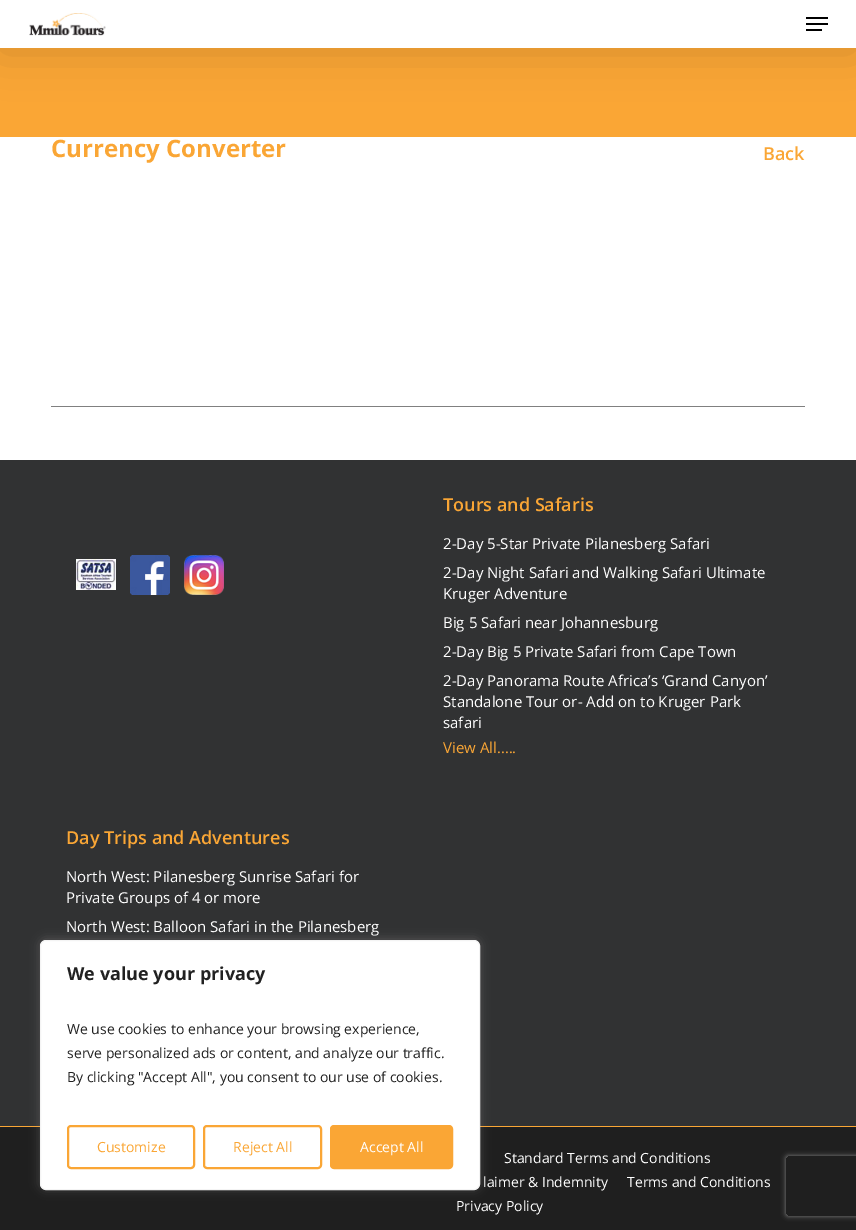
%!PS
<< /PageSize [856 1230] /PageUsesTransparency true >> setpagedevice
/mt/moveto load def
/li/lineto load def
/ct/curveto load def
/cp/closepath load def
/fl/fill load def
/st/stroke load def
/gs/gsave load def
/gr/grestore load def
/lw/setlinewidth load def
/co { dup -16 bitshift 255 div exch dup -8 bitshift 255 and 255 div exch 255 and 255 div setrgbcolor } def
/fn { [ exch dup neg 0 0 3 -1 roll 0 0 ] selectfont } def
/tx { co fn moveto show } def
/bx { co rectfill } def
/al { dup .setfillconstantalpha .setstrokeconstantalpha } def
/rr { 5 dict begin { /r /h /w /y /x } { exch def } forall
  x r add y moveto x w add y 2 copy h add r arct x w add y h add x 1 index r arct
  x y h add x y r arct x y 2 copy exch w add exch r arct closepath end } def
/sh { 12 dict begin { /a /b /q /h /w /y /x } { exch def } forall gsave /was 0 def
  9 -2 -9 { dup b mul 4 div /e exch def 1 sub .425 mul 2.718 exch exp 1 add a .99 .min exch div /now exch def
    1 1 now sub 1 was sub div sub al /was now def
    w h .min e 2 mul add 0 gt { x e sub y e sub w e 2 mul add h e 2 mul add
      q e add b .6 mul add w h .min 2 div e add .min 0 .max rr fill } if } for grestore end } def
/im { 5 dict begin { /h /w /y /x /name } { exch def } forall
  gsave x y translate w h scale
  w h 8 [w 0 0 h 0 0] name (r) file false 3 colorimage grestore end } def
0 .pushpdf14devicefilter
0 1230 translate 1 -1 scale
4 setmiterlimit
0 0 856 1230 16#FFFFFF bx
0 48 856 89 16#FAA635 bx
16#000000 co
0 -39 856 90 0 22.5 .15 sh
0 0 856 48 16#FFFFFF bx
(media/1.raw) 29 13 77 23 im
806 17 22 2 16#000000 bx
806 29 16 2 16#000000 bx
806 23 22 2 16#000000 bx
51 406 754 1 16#808080 bx
0 460 856 666 16#313233 bx
(media/2.raw) 76 559 40 31 im
(media/3.raw) 130 555 40 40 im
(media/4.raw) 184 555 40 40 im
0 1127 856 103 16#1F1F1F bx
0 1126 856 1 16#FAA635 bx
16#ACABAB co
40 939 440 250 6 5 .3 sh
16#FFFFFF co
40.5 940.5 439 249 5.5 rr gs fl gr
16#F4F4F4 co
st
16#FAA635 co
2 lw
68 1126 126 42 3 rr st
204 1126 117 42 3 rr st
331 1126 121 42 3 rr gs fl gr
st
gs
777 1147 mt 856 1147 li 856 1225 li 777 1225 li cp 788 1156 mt 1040 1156 li 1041 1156 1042 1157 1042 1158 ct 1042 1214 li 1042 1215 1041 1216 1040 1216 ct 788 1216 li 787 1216 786 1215 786 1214 ct 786 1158 li 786 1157 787 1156 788 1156 ct cp eoclip newpath
16#808080 co
786 1156 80 60 2 2.5 1 sh
gr
(Currency Converter) 51 157 /OpenSans-Bold 24 16#FAA635 tx
(Back) 763 160 /OpenSans-SemiBold 18 16#FAA635 tx
(Tours and Safaris) 443 511 /OpenSans-SemiBold 18 16#FAA635 tx
(2-Day 5-Star Private Pilanesberg Safari) 443 549 /OpenSans-Regular 15 16#FFFFFF tx
(2-Day Night Safari and Walking Safari Ultimate) 443 578 /OpenSans-Regular 15 16#FFFFFF tx
(Kruger Adventure) 443 599 /OpenSans-Regular 15 16#FFFFFF tx
(Big 5 Safari near Johannesburg) 443 628 /OpenSans-Regular 15 16#FFFFFF tx
(2-Day Big 5 Private Safari from Cape Town) 443 657 /OpenSans-Regular 15 16#FFFFFF tx
(2-Day Panorama Route Africa’s ‘Grand Canyon’) 443 686 /OpenSans-Regular 15 16#FFFFFF tx
(Standalone Tour or- Add on to Kruger Park) 443 707 /OpenSans-Regular 15 16#FFFFFF tx
(safari) 443 728 /OpenSans-Regular 15 16#FFFFFF tx
(View All.....) 443 753 /OpenSans-Regular 15 16#FAA635 tx
(Day Trips and Adventures) 66 844 /OpenSans-SemiBold 18 16#FAA635 tx
(North West: Pilanesberg Sunrise Safari for) 66 882 /OpenSans-Regular 15 16#FFFFFF tx
(Private Groups of 4 or more) 66 903 /OpenSans-Regular 15 16#FFFFFF tx
(North West: Balloon Safari in the Pilanesberg) 66 932 /OpenSans-Regular 15 16#FFFFFF tx
(Standard Terms and Conditions) 504 1163 /OpenSans-Regular 14 16#FFFFFF tx
(laimer & Indemnity) 483 1187 /OpenSans-Regular 14 16#FFFFFF tx
(Terms and Conditions) 627 1187 /OpenSans-Regular 14 16#FFFFFF tx
(Privacy Policy) 456 1211 /OpenSans-Regular 14 16#FFFFFF tx
(We value your privacy) 67 980 /OpenSans-Bold 18 16#212121 tx
(We use cookies to enhance your browsing experience,) 67 1034 /OpenSans-Regular 14 16#212121 tx
(serve personalized ads or content, and analyze our traffic.) 67 1058 /OpenSans-Regular 14 16#212121 tx
(By clicking "Accept All", you consent to our use of cookies.) 67 1082 /OpenSans-Regular 14 16#212121 tx
(Customize) 97 1152 /OpenSans-Regular 14 16#FAA635 tx
(Reject All) 233 1152 /OpenSans-Regular 14 16#FAA635 tx
(Accept All) 360 1152 /OpenSans-Regular 14 16#FFFFFF tx
.poppdf14devicefilter showpage
